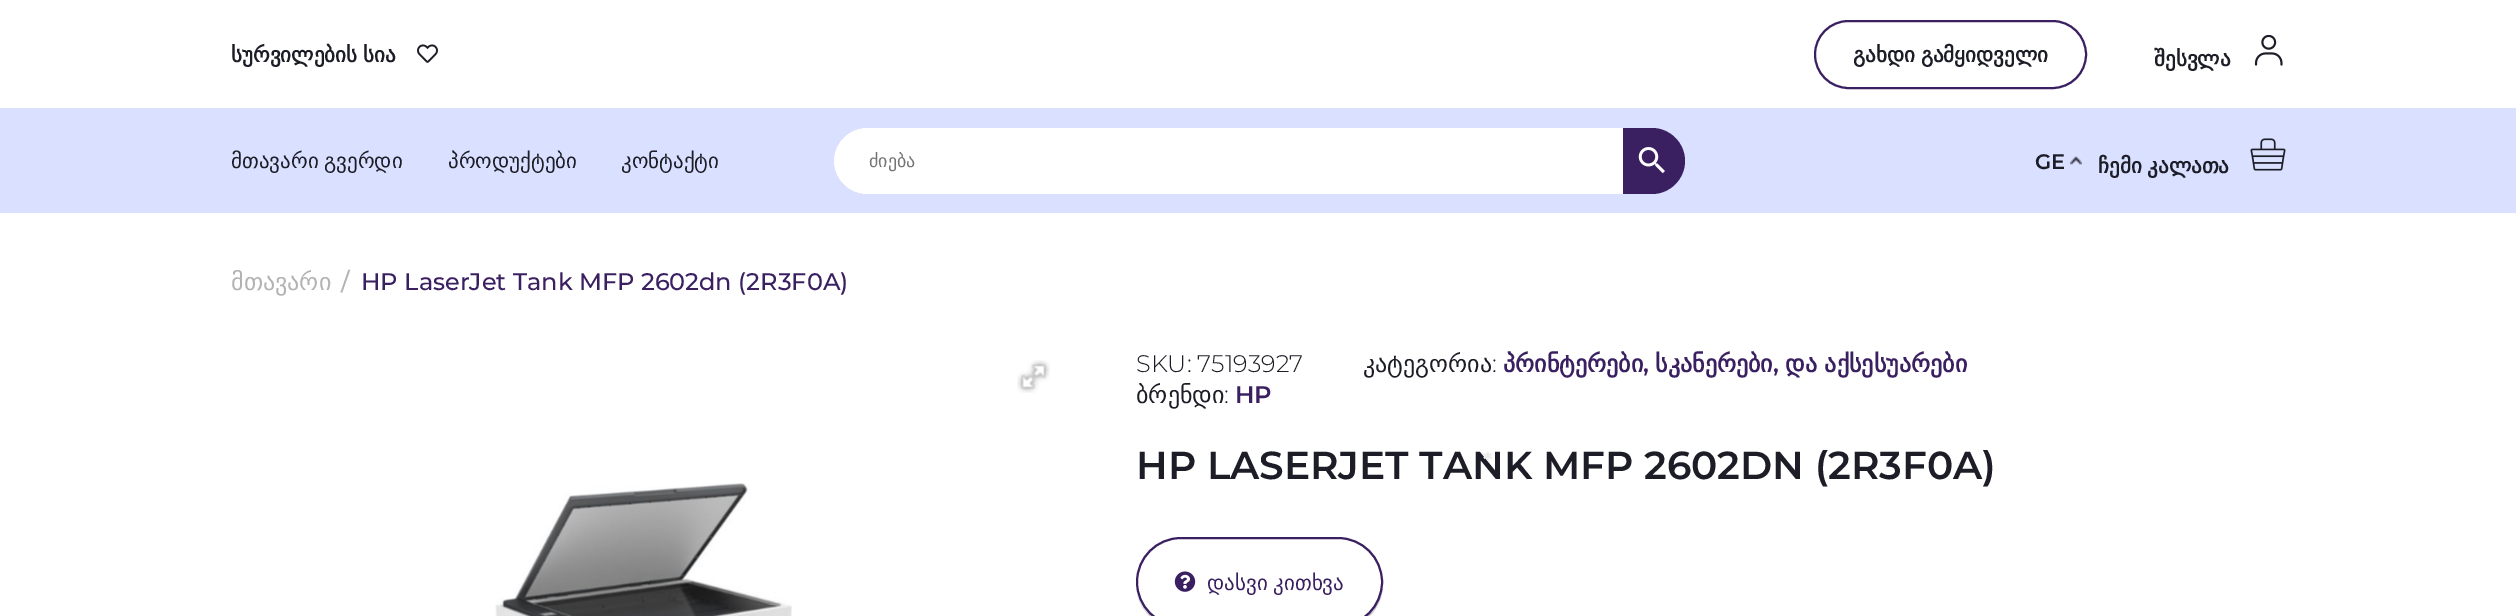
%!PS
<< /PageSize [2516 616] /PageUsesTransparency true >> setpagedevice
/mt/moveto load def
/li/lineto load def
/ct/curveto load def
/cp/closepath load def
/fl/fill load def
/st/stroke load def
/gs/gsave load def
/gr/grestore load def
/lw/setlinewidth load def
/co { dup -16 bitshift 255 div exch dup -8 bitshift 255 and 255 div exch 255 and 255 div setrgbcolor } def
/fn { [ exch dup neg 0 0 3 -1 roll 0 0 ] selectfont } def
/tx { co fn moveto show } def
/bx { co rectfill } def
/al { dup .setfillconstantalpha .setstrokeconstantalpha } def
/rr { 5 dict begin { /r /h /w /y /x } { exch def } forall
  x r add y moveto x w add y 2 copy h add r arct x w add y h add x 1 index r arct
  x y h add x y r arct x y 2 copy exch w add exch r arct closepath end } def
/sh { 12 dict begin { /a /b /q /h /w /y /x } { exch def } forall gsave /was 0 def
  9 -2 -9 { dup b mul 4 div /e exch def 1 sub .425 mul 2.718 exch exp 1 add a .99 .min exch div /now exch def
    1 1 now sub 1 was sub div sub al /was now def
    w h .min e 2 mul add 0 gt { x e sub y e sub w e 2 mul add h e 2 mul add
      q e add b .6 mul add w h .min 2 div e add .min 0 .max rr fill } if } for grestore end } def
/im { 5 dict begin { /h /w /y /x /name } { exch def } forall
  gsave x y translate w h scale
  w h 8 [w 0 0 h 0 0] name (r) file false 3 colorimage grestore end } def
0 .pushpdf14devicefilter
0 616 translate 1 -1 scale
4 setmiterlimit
0 0 2516 616 16#FFFFFF bx
(media/1.raw) 417 44 21 19 im
16#3A2061 co
2 lw
1815 21 271 67 33.5 rr st
(media/2.raw) 2254 35 29 31 im
0 108 2516 105 16#DAE0FF bx
16#3A2061 co
1622 128 mt 1652 128 li 1670 128 1685 143 1685 161 ct 1685 179 1670 194 1652 194 ct 1622 194 li cp fl
(media/3.raw) 1638 147 27 27 im
gs
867 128 mt 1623 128 li 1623 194 li 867 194 li 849 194 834 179 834 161 ct 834 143 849 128 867 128 ct cp clip newpath
16#313451 co
834 134 789 66 33 30 .1 sh
gr
16#FFFFFF co
867 128 mt 1623 128 li 1623 194 li 867 194 li 849 194 834 179 834 161 ct 834 143 849 128 867 128 ct cp fl
(media/4.raw) 2070 156 12 9 im
(media/5.raw) 2250 138 36 33 im
(media/6.raw) 1017 360 33 33 im
(media/7.raw) 495 483 297 133 im
16#CCCCCC co
1137 594 mt 1142 614 1160 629 1181 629 ct 1338 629 li 1363 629 1383 609 1383 584 ct 1383 583 li 1382 607 1363 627 1338 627 ct 1180 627 li 1160 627 1142 613 1137 594 ct cp fl
16#FFFFFF co
1137 538 245 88 44 rr gs fl gr
16#3A2061 co
st
(media/8.raw) 1174 571 22 21 im
/DejaVuSans-Bold 21 fn
16#1C1D26 co
231 62 mt -1 0 32 (სურვილების სია) widthshow
1853 62 mt -1 0 32 (გახდი გამყიდველი) widthshow
(შესვლა) 2154 66 /DejaVuSans-Bold 21 16#1C1D26 tx
/DejaVuSans-Regular 21 fn
231 168 mt -1 0 32 (მთავარი გვერდი) widthshow
(პროდუქტები) 448 168 /DejaVuSans-Regular 21 16#1C1D26 tx
(კონტაქტი) 621 168 /DejaVuSans-Regular 21 16#1C1D26 tx
(ძიება) 869 167 /DejaVuSans-Regular 18 16#757575 tx
(GE) 2035 169 /Montserrat-SemiBold 21 16#1C1D26 tx
/DejaVuSans-Bold 21 fn
2098 173 mt -1 0 32 (ჩემი კალათა) widthshow
(მთავარი) 231 290 /DejaVuSans-Regular 24 16#B3B3B3 tx
(/) 341 290 /Montserrat-Medium 24 16#B3B3B3 tx
(HP LaserJet Tank MFP 2602dn \(2R3F0A\)) 361 290 /Montserrat-Medium 24 16#3A2061 tx
(SKU: 75193927) 1136 372 /Montserrat-Light 24 16#1C1D26 tx
(კატეგორია) 1363 372 /DejaVuSans-Regular 24 16#1C1D26 tx
(:) 1492 372 /Montserrat-Light 24 16#1C1D26 tx
(პრინტერები) 1503 372 /DejaVuSans-Bold 24 16#3A2061 tx
(,) 1643 372 /Montserrat-SemiBold 24 16#3A2061 tx
(სკანერები) 1655 372 /DejaVuSans-Bold 24 16#3A2061 tx
(,) 1773 372 /Montserrat-SemiBold 24 16#3A2061 tx
(და აქსესუარები) 1785 372 /DejaVuSans-Bold 24 16#3A2061 tx
(ბრენდი) 1136 403 /DejaVuSans-Regular 24 16#1C1D26 tx
(:) 1224 403 /Montserrat-Light 24 16#1C1D26 tx
(HP) 1235 403 /Montserrat-SemiBold 24 16#3A2061 tx
(HP LASERJET TANK MFP 2602DN \(2R3F0A\)) 1136 479 /Montserrat-SemiBold 39 16#1C1D26 tx
/DejaVuSans-Regular 21 fn
16#3A2061 co
1207 590 mt -1 0 32 (დასვი კითხვა) widthshow
(*) 1483 468 /Montserrat-Bold 22 16#EBEBEC tx
.poppdf14devicefilter showpage
